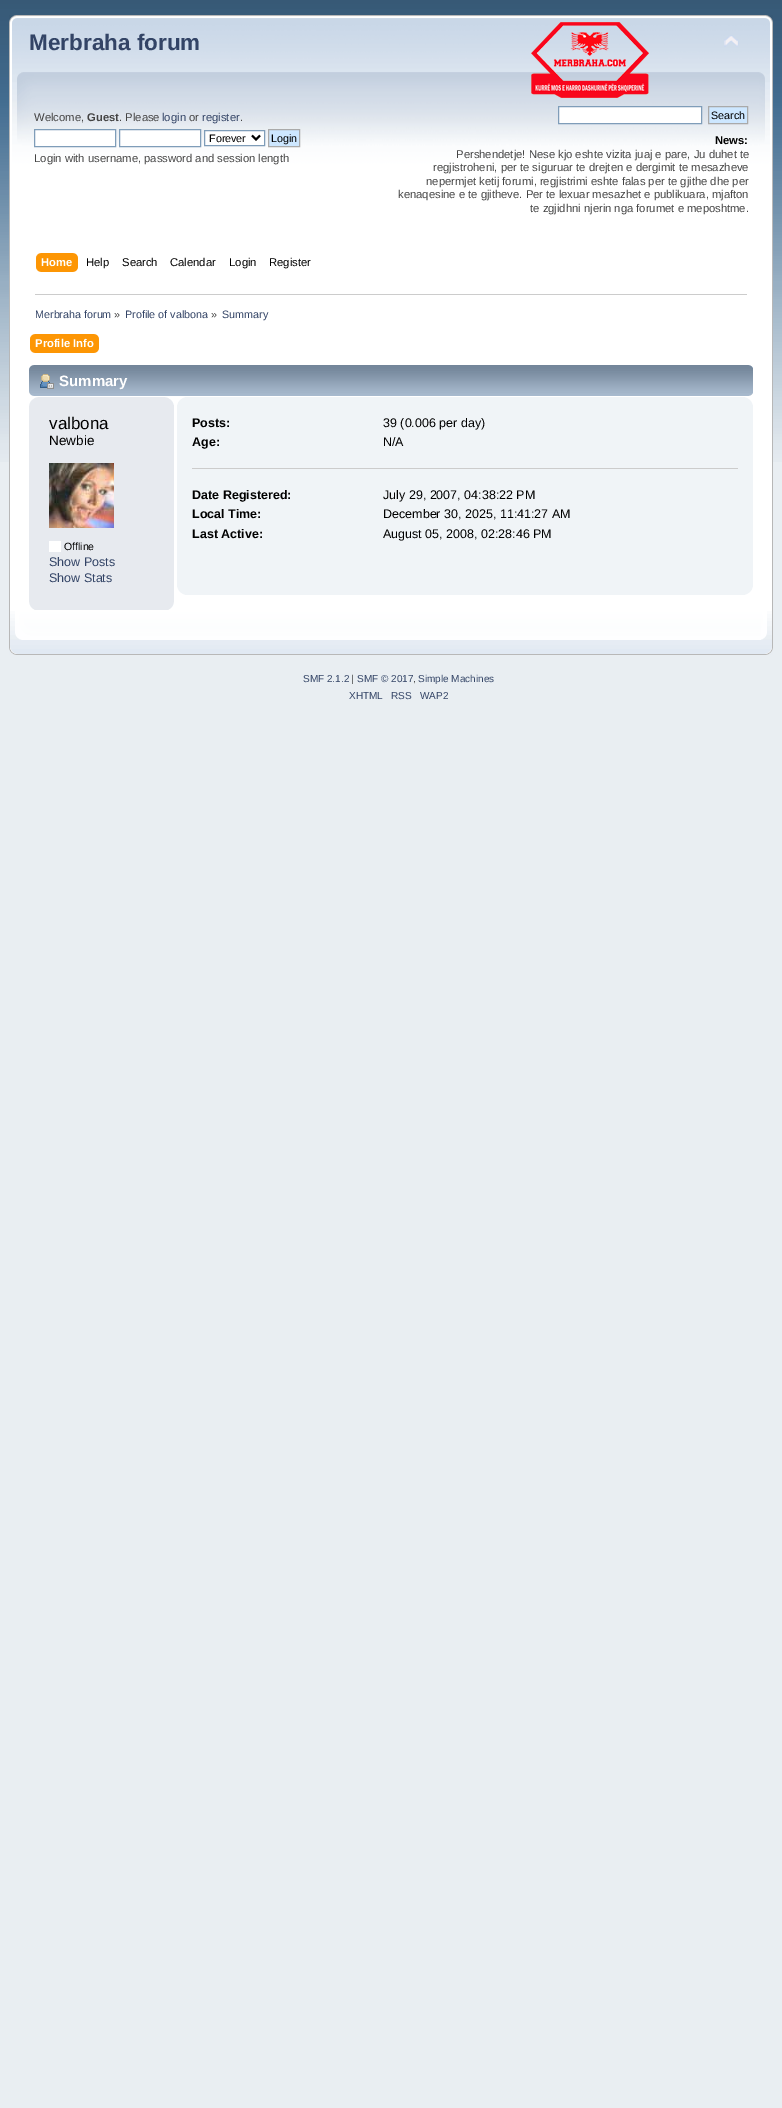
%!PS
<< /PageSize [782 2108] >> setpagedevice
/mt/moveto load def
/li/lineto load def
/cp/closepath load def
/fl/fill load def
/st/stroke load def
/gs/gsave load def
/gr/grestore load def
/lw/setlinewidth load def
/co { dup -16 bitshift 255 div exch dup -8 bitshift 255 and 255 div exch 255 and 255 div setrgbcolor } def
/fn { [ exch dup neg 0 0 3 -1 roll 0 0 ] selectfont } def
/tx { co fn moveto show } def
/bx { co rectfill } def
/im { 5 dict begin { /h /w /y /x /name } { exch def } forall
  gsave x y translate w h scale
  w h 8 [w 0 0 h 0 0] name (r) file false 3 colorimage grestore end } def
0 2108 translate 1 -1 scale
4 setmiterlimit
0 0 782 2108 16#E9EEF2 bx
(media/1.raw) 0 0 782 462 im
(media/2.raw) 9 15 750 273 im
(media/3.raw) 759 15 14 273 im
(media/4.raw) 531 22 118 76 im
(media/5.raw) 724 35 15 12 im
16#FFFFFF co
34.5 129.5 mt 115.5 129.5 li 115.5 146.5 li 34.5 146.5 li cp gs fl gr
16#7F9DB9 co
st
16#FFFFFF co
119.5 129.5 mt 200.5 129.5 li 200.5 146.5 li 119.5 146.5 li cp gs fl gr
16#7F9DB9 co
st
16#FFFFFF co
204.5 130.5 mt 264.5 130.5 li 264.5 145.5 li 204.5 145.5 li cp gs fl gr
16#7F9DB9 co
st
16#000000 co
2 lw
252 135.5 mt 256 139.5 li 260 135.5 li st
16#CDE7FF co
268.5 129.5 mt 299.5 129.5 li 299.5 146.5 li 268.5 146.5 li cp gs fl gr
16#AAAAAA co
1 lw
st
16#FFFFFF co
558.5 106.5 mt 701.5 106.5 li 701.5 123.5 li 558.5 123.5 li cp gs fl gr
16#7F9DB9 co
st
16#CDE7FF co
708.5 106.5 mt 747.5 106.5 li 747.5 123.5 li 708.5 123.5 li cp gs fl gr
16#AAAAAA co
st
(media/6.raw) 41 253 37 19 im
(media/7.raw) 36 253 5 19 im
10 288 762 323 16#FFFFFF bx
9 288 1 323 16#B7B7B7 bx
772 288 1 323 16#B7B7B7 bx
35 294 712 1 16#CCCCCC bx
(media/8.raw) 35 334 64 19 im
(media/9.raw) 30 334 5 19 im
(media/10.raw) 29 365 719 31 im
(media/11.raw) 748 365 5 31 im
(media/12.raw) 40 374 14 15 im
29 397 145 213 16#E7EAEF bx
(media/13.raw) 29 397 9 9 im
(media/14.raw) 165 397 9 8 im
(media/15.raw) 49 463 65 65 im
49 541 12 11 16#FFFFFF bx
(media/16.raw) 29 602 6 8 im
(media/17.raw) 168 602 6 8 im
177 397 576 198 16#F0F4F7 bx
(media/18.raw) 177 397 8 8 im
(media/19.raw) 745 397 8 8 im
192 468 546 1 16#CCCCCC bx
(media/20.raw) 177 587 8 8 im
(media/21.raw) 745 587 8 8 im
(media/22.raw) 9 611 752 44 im
(media/23.raw) 761 611 12 44 im
(Merbraha forum) 29 50 /LiberationSans-Bold 22.5 16#334466 tx
(Welcome,) 34 121 /LiberationSans-Regular 11.25 16#444444 tx
(Guest) 87 121 /LiberationSans-Bold 11.25 16#444444 tx
(. Please) 119 121 /LiberationSans-Regular 11.25 16#444444 tx
(login) 162 121 /LiberationSans-Regular 11.25 16#334466 tx
(or) 189 121 /LiberationSans-Regular 11.25 16#444444 tx
(register) 202 121 /LiberationSans-Regular 11.25 16#334466 tx
(.) 240 121 /LiberationSans-Regular 11.25 16#444444 tx
(Forever) 209 142 /LiberationSans-Regular 10.75 16#000000 tx
(Login) 271 142 /LiberationSans-Regular 10.75 16#000000 tx
(Login with username, password and session length) 34 162 /LiberationSans-Regular 11.25 16#444444 tx
(Search) 711 119 /LiberationSans-Regular 10.75 16#000000 tx
(News:) 715 144 /LiberationSans-Bold 11.25 16#000000 tx
(Pershendetje! Nese kjo eshte vizita juaj e pare, Ju duhet te) 456 158 /LiberationSans-Regular 11.25 16#444444 tx
(regjistroheni, per te siguruar te drejten e dergimit te mesazheve) 433 171 /LiberationSans-Regular 11.25 16#444444 tx
(nepermjet ketij forumi, regjistrimi eshte falas per te gjithe dhe per) 426 185 /LiberationSans-Regular 11.25 16#444444 tx
(kenaqesine e te gjitheve. Per te lexuar mesazhet e publikuara, mjafton) 398 198 /LiberationSans-Regular 11.25 16#444444 tx
(te zgjidhni njerin nga forumet e meposhtme.) 530 212 /LiberationSans-Regular 11.25 16#444444 tx
(Home) 41 266 /LiberationSans-Bold 11.25 16#FFFFFF tx
(Help) 86 266 /LiberationSans-Regular 11.25 16#000000 tx
(Search) 122 266 /LiberationSans-Regular 11.25 16#000000 tx
(Calendar) 170 266 /LiberationSans-Regular 11.25 16#000000 tx
(Login) 229 266 /LiberationSans-Regular 11.25 16#000000 tx
(Register) 269 266 /LiberationSans-Regular 11.25 16#000000 tx
(Merbraha forum) 35 318 /LiberationSans-Regular 10.75 16#334466 tx
(») 114 318 /LiberationSans-Regular 10.75 16#444444 tx
(Profile of valbona) 125 318 /LiberationSans-Regular 10.75 16#334466 tx
(») 211 318 /LiberationSans-Regular 10.75 16#444444 tx
(Summary) 222 318 /LiberationSans-Regular 10.75 16#334466 tx
(Profile Info) 35 347 /LiberationSans-Bold 11.25 16#FFFFFF tx
(Summary) 59 386 /LiberationSans-Bold 15 16#FFFFFF tx
(valbona) 49 429 /LiberationSans-Regular 17 16#000000 tx
(Newbie) 49 445 /LiberationSans-Regular 13.5 16#000000 tx
(Offline) 64 550 /LiberationSans-Regular 10.5 16#000000 tx
(Show Posts) 49 566 /LiberationSans-Regular 12.5 16#334466 tx
(Show Stats) 49 582 /LiberationSans-Regular 12.5 16#334466 tx
(Posts:) 192 427 /LiberationSans-Bold 12.5 16#000000 tx
(39 \(0.006 per day\)) 383 427 /LiberationSans-Regular 12.5 16#000000 tx
(Age:) 192 446 /LiberationSans-Bold 12.5 16#000000 tx
(N/A) 383 446 /LiberationSans-Regular 12.5 16#000000 tx
(Date Registered:) 192 499 /LiberationSans-Bold 12.5 16#000000 tx
(July 29, 2007, 04:38:22 PM) 383 499 /LiberationSans-Regular 12.5 16#000000 tx
(Local Time:) 192 518 /LiberationSans-Bold 12.5 16#000000 tx
(December 30, 2025, 11:41:27 AM) 383 518 /LiberationSans-Regular 12.5 16#000000 tx
(Last Active:) 192 538 /LiberationSans-Bold 12.5 16#000000 tx
(August 05, 2008, 02:28:46 PM) 383 538 /LiberationSans-Regular 12.5 16#000000 tx
(SMF 2.1.2) 303 682 /LiberationSans-Regular 10 16#334466 tx
(|) 351 682 /LiberationSans-Regular 10 16#444444 tx
(SMF © 2017) 357 682 /LiberationSans-Regular 10 16#334466 tx
(,) 413 682 /LiberationSans-Regular 10 16#444444 tx
(Simple Machines) 418 682 /LiberationSans-Regular 10 16#334466 tx
(XHTML) 349 699 /LiberationSans-Regular 10 16#334466 tx
(RSS) 391 699 /LiberationSans-Regular 10 16#334466 tx
(WAP2) 420 699 /LiberationSans-Regular 10 16#334466 tx
showpage
